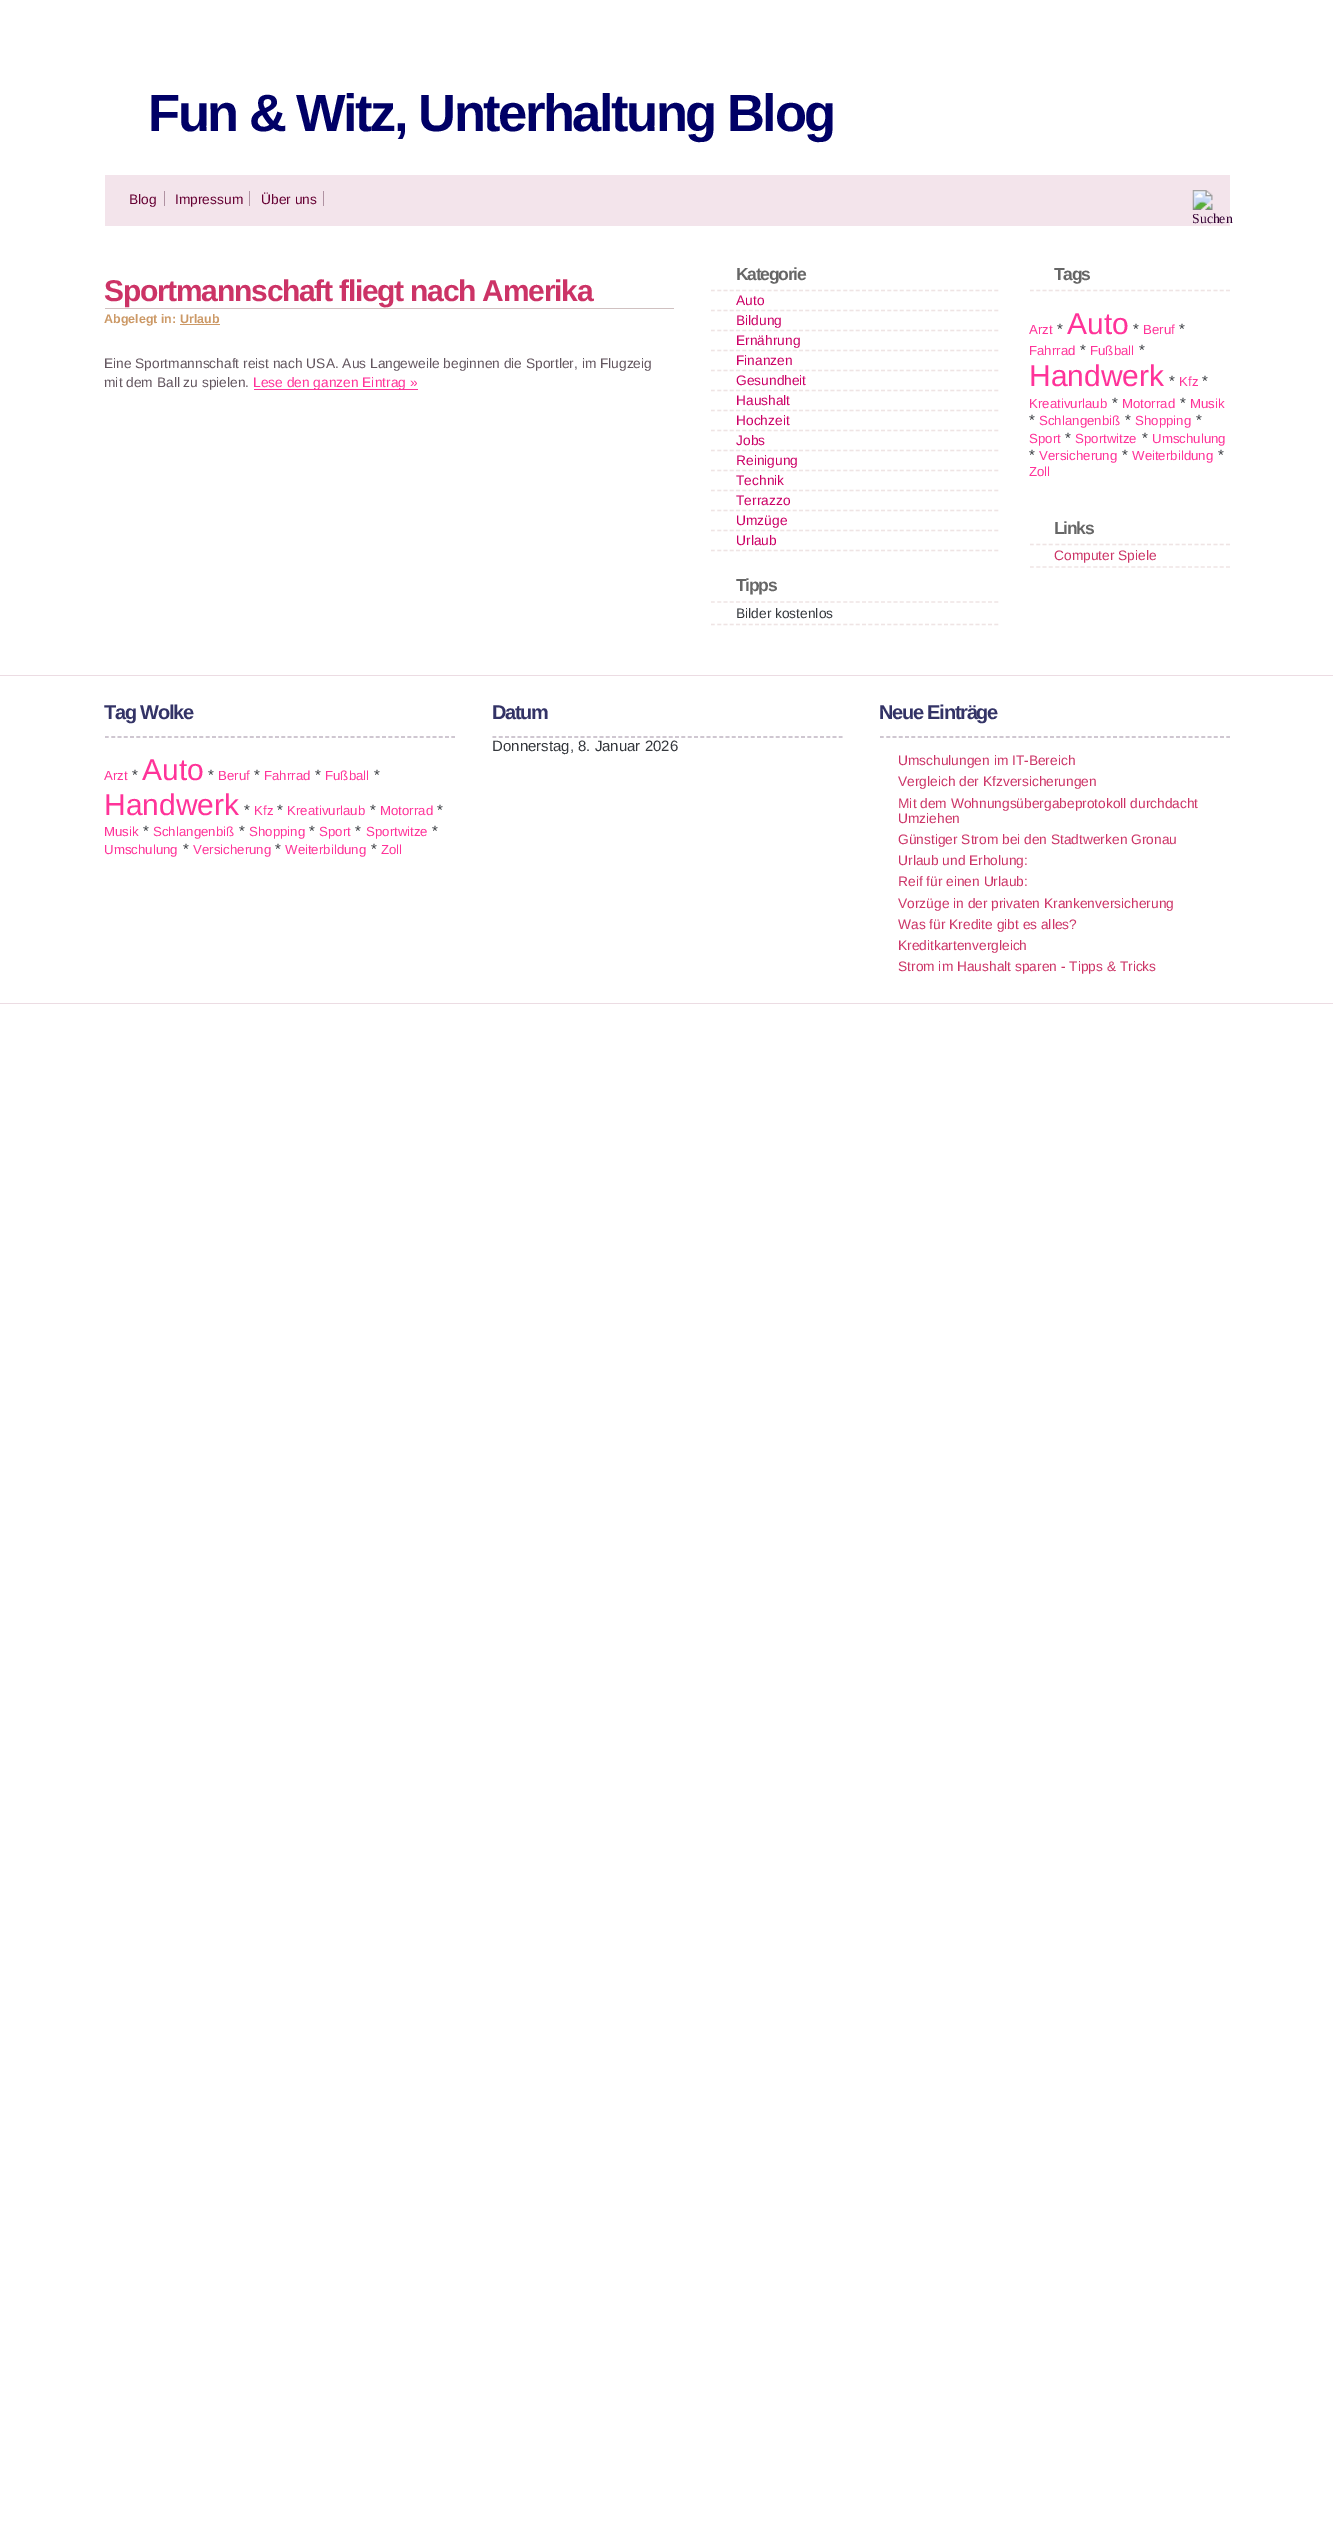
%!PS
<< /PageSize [1333 2535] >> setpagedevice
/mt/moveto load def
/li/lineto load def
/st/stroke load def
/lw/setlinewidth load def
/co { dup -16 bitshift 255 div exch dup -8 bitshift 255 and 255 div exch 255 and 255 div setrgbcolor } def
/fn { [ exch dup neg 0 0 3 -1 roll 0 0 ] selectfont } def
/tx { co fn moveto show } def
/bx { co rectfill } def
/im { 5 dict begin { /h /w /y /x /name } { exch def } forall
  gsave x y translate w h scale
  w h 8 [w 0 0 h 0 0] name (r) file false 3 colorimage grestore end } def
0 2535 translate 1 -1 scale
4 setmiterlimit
0 0 1333 2535 16#FFFFFF bx
105 175 1125 51 16#F3E4EB bx
164 191 1 15 16#B092A2 bx
249 191 1 15 16#B092A2 bx
323 191 1 15 16#B092A2 bx
(media/1.raw) 1192 190 21 20 im
105 308 569 1 16#D0C1C1 bx
180 324 40 1 16#CC9966 bx
254 389 164 1 16#FF3399 bx
16#EFE4E4 co
1.2 lw
[3.75 2.55] 0 setdash
711 290.5 mt 999 290.5 li st
711 310.5 mt 999 310.5 li st
711 330.5 mt 999 330.5 li st
711 350.5 mt 999 350.5 li st
711 370.5 mt 999 370.5 li st
711 390.5 mt 999 390.5 li st
711 410.5 mt 999 410.5 li st
711 430.5 mt 999 430.5 li st
711 450.5 mt 999 450.5 li st
711 470.5 mt 999 470.5 li st
711 490.5 mt 999 490.5 li st
711 510.5 mt 999 510.5 li st
711 530.5 mt 999 530.5 li st
711 550.5 mt 999 550.5 li st
711 602 mt 999 602 li st
711 624.5 mt 999 624.5 li st
[3.75 2.58] 0 setdash
1030 290.5 mt 1230 290.5 li st
1030 544.5 mt 1230 544.5 li st
1030 567 mt 1230 567 li st
0 675 1333 1 16#ECDCE3 bx
0 1003 1333 1 16#ECDCE3 bx
16#BEB4C1 co
[3.75 2.55] 0 setdash
105 737 mt 455 737 li st
492.5 737 mt 842.5 737 li st
880 737 mt 1230 737 li st
/LiberationSans-Bold 52.5 fn
16#000066 co
148 131 mt -2.5 0 (Fun & Witz, Unterhaltung Blog) ashow
(Blog) 129 204 /LiberationSans-Regular 13.75 16#660033 tx
(Impressum) 175 204 /LiberationSans-Regular 13.75 16#660033 tx
(Über uns) 261 204 /LiberationSans-Regular 13.75 16#660033 tx
(Suchen) 1192 223 /LiberationSerif-Regular 13.75 16#330033 tx
/LiberationSans-Bold 30 fn
16#CC3366 co
104 301 mt -1.25 0 (Sportmannschaft fliegt nach Amerika) ashow
(Abgelegt in: Urlaub) 104 323 /LiberationSans-Bold 12.5 16#CC9966 tx
(Eine Sportmannschaft reist nach USA. Aus Langeweile beginnen die Sportler, im Flugzeig) 104 368 /LiberationSans-Regular 13.75 16#63565F tx
(mit dem Ball zu spielen.) 104 387 /LiberationSans-Regular 13.75 16#63565F tx
(Lese den ganzen Eintrag ») 253 387 /LiberationSans-Regular 13.75 16#FF3399 tx
/LiberationSans-Bold 17.5 fn
16#666666 co
736 280 mt -1.25 0 (Kategorie) ashow
(Auto) 736 305 /LiberationSans-Regular 13.75 16#CC0066 tx
(Bildung) 736 325 /LiberationSans-Regular 13.75 16#CC0066 tx
(Ernährung) 736 345 /LiberationSans-Regular 13.75 16#CC0066 tx
(Finanzen) 736 365 /LiberationSans-Regular 13.75 16#CC0066 tx
(Gesundheit) 736 385 /LiberationSans-Regular 13.75 16#CC0066 tx
(Haushalt) 736 405 /LiberationSans-Regular 13.75 16#CC0066 tx
(Hochzeit) 736 425 /LiberationSans-Regular 13.75 16#CC0066 tx
(Jobs) 736 445 /LiberationSans-Regular 13.75 16#CC0066 tx
(Reinigung) 736 465 /LiberationSans-Regular 13.75 16#CC0066 tx
(Technik) 736 485 /LiberationSans-Regular 13.75 16#CC0066 tx
(Terrazzo) 736 505 /LiberationSans-Regular 13.75 16#CC0066 tx
(Umzüge) 736 525 /LiberationSans-Regular 13.75 16#CC0066 tx
(Urlaub) 736 545 /LiberationSans-Regular 13.75 16#CC0066 tx
/LiberationSans-Bold 17.5 fn
16#666666 co
736 591 mt -1.25 0 (Tipps) ashow
(Bilder kostenlos) 736 618 /LiberationSans-Regular 13.75 16#35383D tx
/LiberationSans-Bold 17.5 fn
16#666666 co
1054 280 mt -1.25 0 (Tags) ashow
(Arzt) 1029 334 /LiberationSans-Regular 13.25 16#FF3399 tx
(*) 1057 334 /LiberationSans-Regular 15 16#35383D tx
(Auto) 1067 334 /LiberationSans-Regular 30 16#FF3399 tx
(*) 1133 334 /LiberationSans-Regular 15 16#35383D tx
(Beruf) 1143 334 /LiberationSans-Regular 13.25 16#FF3399 tx
(*) 1179 334 /LiberationSans-Regular 15 16#35383D tx
(Fahrrad) 1029 355 /LiberationSans-Regular 13.25 16#FF3399 tx
(*) 1080 355 /LiberationSans-Regular 15 16#35383D tx
(Fußball) 1090 355 /LiberationSans-Regular 13.25 16#FF3399 tx
(*) 1139 355 /LiberationSans-Regular 15 16#35383D tx
(Handwerk) 1029 386 /LiberationSans-Regular 30 16#FF3399 tx
(*) 1169 386 /LiberationSans-Regular 15 16#35383D tx
(Kfz) 1179 386 /LiberationSans-Regular 13.25 16#FF3399 tx
(*) 1202 386 /LiberationSans-Regular 15 16#35383D tx
(Kreativurlaub) 1029 408 /LiberationSans-Regular 13.25 16#FF3399 tx
(*) 1112 408 /LiberationSans-Regular 15 16#35383D tx
(Motorrad) 1122 408 /LiberationSans-Regular 13.25 16#FF3399 tx
(*) 1180 408 /LiberationSans-Regular 15 16#35383D tx
(Musik) 1190 408 /LiberationSans-Regular 13.25 16#FF3399 tx
(*) 1029 425 /LiberationSans-Regular 15 16#35383D tx
(Schlangenbiß) 1039 425 /LiberationSans-Regular 13.25 16#FF3399 tx
(*) 1125 425 /LiberationSans-Regular 15 16#35383D tx
(Shopping) 1135 425 /LiberationSans-Regular 13.25 16#FF3399 tx
(*) 1196 425 /LiberationSans-Regular 15 16#35383D tx
(Sport) 1029 443 /LiberationSans-Regular 13.25 16#FF3399 tx
(*) 1065 443 /LiberationSans-Regular 15 16#35383D tx
(Sportwitze) 1075 443 /LiberationSans-Regular 13.25 16#FF3399 tx
(*) 1142 443 /LiberationSans-Regular 15 16#35383D tx
(Umschulung) 1152 443 /LiberationSans-Regular 13.25 16#FF3399 tx
(*) 1029 460 /LiberationSans-Regular 15 16#35383D tx
(Versicherung) 1039 460 /LiberationSans-Regular 13.25 16#FF3399 tx
(*) 1122 460 /LiberationSans-Regular 15 16#35383D tx
(Weiterbildung) 1132 460 /LiberationSans-Regular 13.25 16#FF3399 tx
(*) 1218 460 /LiberationSans-Regular 15 16#35383D tx
(Zoll) 1029 476 /LiberationSans-Regular 13.25 16#FF3399 tx
/LiberationSans-Bold 17.5 fn
16#666666 co
1054 534 mt -1.25 0 (Links) ashow
(Computer Spiele) 1054 560 /LiberationSans-Regular 13.75 16#CC3366 tx
/LiberationSans-Bold 20 fn
16#333366 co
104 719 mt -1.25 0 (Tag Wolke) ashow
(Arzt) 104 780 /LiberationSans-Regular 13.25 16#FF3399 tx
(*) 132 780 /LiberationSans-Regular 15 16#35383D tx
(Auto) 142 780 /LiberationSans-Regular 30 16#FF3399 tx
(*) 208 780 /LiberationSans-Regular 15 16#35383D tx
(Beruf) 218 780 /LiberationSans-Regular 13.25 16#FF3399 tx
(*) 254 780 /LiberationSans-Regular 15 16#35383D tx
(Fahrrad) 264 780 /LiberationSans-Regular 13.25 16#FF3399 tx
(*) 315 780 /LiberationSans-Regular 15 16#35383D tx
(Fußball) 325 780 /LiberationSans-Regular 13.25 16#FF3399 tx
(*) 374 780 /LiberationSans-Regular 15 16#35383D tx
(Handwerk) 104 815 /LiberationSans-Regular 30 16#FF3399 tx
(*) 244 815 /LiberationSans-Regular 15 16#35383D tx
(Kfz) 254 815 /LiberationSans-Regular 13.25 16#FF3399 tx
(*) 277 815 /LiberationSans-Regular 15 16#35383D tx
(Kreativurlaub) 287 815 /LiberationSans-Regular 13.25 16#FF3399 tx
(*) 370 815 /LiberationSans-Regular 15 16#35383D tx
(Motorrad) 380 815 /LiberationSans-Regular 13.25 16#FF3399 tx
(*) 437 815 /LiberationSans-Regular 15 16#35383D tx
(Musik) 104 836 /LiberationSans-Regular 13.25 16#FF3399 tx
(*) 143 836 /LiberationSans-Regular 15 16#35383D tx
(Schlangenbiß) 153 836 /LiberationSans-Regular 13.25 16#FF3399 tx
(*) 239 836 /LiberationSans-Regular 15 16#35383D tx
(Shopping) 249 836 /LiberationSans-Regular 13.25 16#FF3399 tx
(*) 309 836 /LiberationSans-Regular 15 16#35383D tx
(Sport) 319 836 /LiberationSans-Regular 13.25 16#FF3399 tx
(*) 355 836 /LiberationSans-Regular 15 16#35383D tx
(Sportwitze) 366 836 /LiberationSans-Regular 13.25 16#FF3399 tx
(*) 432 836 /LiberationSans-Regular 15 16#35383D tx
(Umschulung) 104 854 /LiberationSans-Regular 13.25 16#FF3399 tx
(*) 183 854 /LiberationSans-Regular 15 16#35383D tx
(Versicherung) 193 854 /LiberationSans-Regular 13.25 16#FF3399 tx
(*) 275 854 /LiberationSans-Regular 15 16#35383D tx
(Weiterbildung) 285 854 /LiberationSans-Regular 13.25 16#FF3399 tx
(*) 371 854 /LiberationSans-Regular 15 16#35383D tx
(Zoll) 381 854 /LiberationSans-Regular 13.25 16#FF3399 tx
/LiberationSans-Bold 20 fn
16#333366 co
492 719 mt -1.25 0 (Datum) ashow
(Donnerstag, 8. Januar 2026) 492 751 /LiberationSans-Regular 15 16#35383D tx
/LiberationSans-Bold 20 fn
16#333366 co
879 719 mt -1.25 0 (Neue Einträge) ashow
(Umschulungen im IT-Bereich) 898 765 /LiberationSans-Regular 13.75 16#CC3366 tx
(Vergleich der Kfzversicherungen) 898 786 /LiberationSans-Regular 13.75 16#CC3366 tx
(Mit dem Wohnungsübergabeprotokoll durchdacht) 898 808 /LiberationSans-Regular 13.75 16#CC3366 tx
(Umziehen) 898 823 /LiberationSans-Regular 13.75 16#CC3366 tx
(Günstiger Strom bei den Stadtwerken Gronau) 898 844 /LiberationSans-Regular 13.75 16#CC3366 tx
(Urlaub und Erholung:) 898 865 /LiberationSans-Regular 13.75 16#CC3366 tx
(Reif für einen Urlaub:) 898 886 /LiberationSans-Regular 13.75 16#CC3366 tx
(Vorzüge in der privaten Krankenversicherung) 898 908 /LiberationSans-Regular 13.75 16#CC3366 tx
(Was für Kredite gibt es alles?) 898 929 /LiberationSans-Regular 13.75 16#CC3366 tx
(Kreditkartenvergleich) 898 950 /LiberationSans-Regular 13.75 16#CC3366 tx
(Strom im Haushalt sparen - Tipps & Tricks) 898 971 /LiberationSans-Regular 13.75 16#CC3366 tx
showpage
